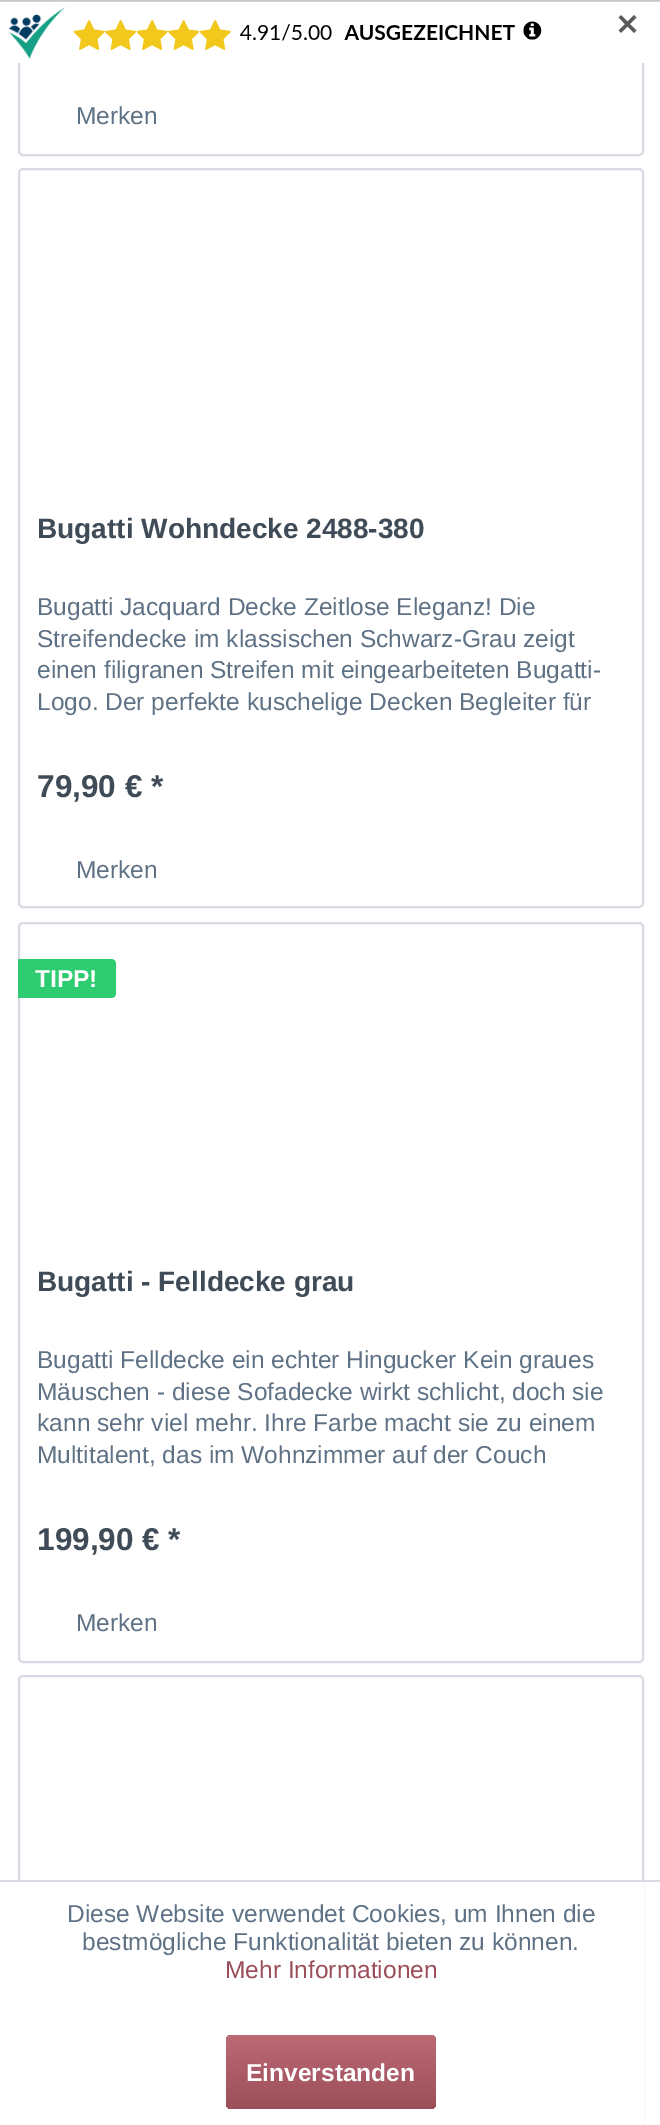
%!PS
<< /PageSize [660 2125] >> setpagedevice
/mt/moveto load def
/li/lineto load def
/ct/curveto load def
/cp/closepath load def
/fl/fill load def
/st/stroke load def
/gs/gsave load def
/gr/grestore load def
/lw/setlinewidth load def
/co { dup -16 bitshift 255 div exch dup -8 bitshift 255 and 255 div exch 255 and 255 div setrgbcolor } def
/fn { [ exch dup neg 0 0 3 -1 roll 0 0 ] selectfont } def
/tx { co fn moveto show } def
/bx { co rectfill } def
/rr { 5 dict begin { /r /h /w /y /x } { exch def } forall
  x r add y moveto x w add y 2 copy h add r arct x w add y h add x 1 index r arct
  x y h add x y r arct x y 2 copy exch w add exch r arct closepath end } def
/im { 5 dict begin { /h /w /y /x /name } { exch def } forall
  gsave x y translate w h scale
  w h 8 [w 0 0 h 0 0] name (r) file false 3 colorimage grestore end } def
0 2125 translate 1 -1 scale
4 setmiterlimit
0 0 660 2125 16#FFFFFF bx
16#DADAE5 co
2 lw
19 -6 624 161 4 rr st
(media/1.raw) 0 0 660 63 im
19 169 624 738 4 rr st
19 923 624 739 4 rr st
16#2ECC71 co
18 959 mt 111 959 li 114 959 116 961 116 964 ct 116 993 li 116 996 114 998 111 998 ct 18 998 li cp fl
16#DADAE5 co
19 1676 624 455 4 rr st
18 1882 626 243 16#FFFFFF bx
0 1880 660 2 16#DADAE5 bx
gs 226 2035 210 74 5 rr clip newpath
<< /ShadingType 2 /ColorSpace /DeviceRGB /Coords [331 2035 331 2109] /Extend [true true] /Function << /FunctionType 2 /Domain [0 1] /C0 [.737 .416 .463] /C1 [.608 .306 .349] /N 1 >> >> shfill gr
(✕) 615 35 /DejaVuSans-Bold 29 16#595959 tx
(Merken) 76 124 /LiberationSans-Regular 24.5 16#5F7285 tx
(Bugatti Wohndecke 2488-380) 37 538 /LiberationSans-Bold 28 16#3F4C58 tx
(Bugatti Jacquard Decke Zeitlose Eleganz! Die) 37 615 /LiberationSans-Regular 24.5 16#5F7285 tx
(Streifendecke im klassischen Schwarz-Grau zeigt) 37 647 /LiberationSans-Regular 24.5 16#5F7285 tx
(einen filigranen Streifen mit eingearbeiteten Bugatti-) 37 678 /LiberationSans-Regular 24.5 16#5F7285 tx
(Logo. Der perfekte kuschelige Decken Begleiter für) 37 710 /LiberationSans-Regular 24.5 16#5F7285 tx
(79,90 € *) 37 797 /LiberationSans-Bold 31.5 16#3F4C58 tx
(Merken) 76 878 /LiberationSans-Regular 24.5 16#5F7285 tx
(TIPP!) 35 987 /LiberationSans-Bold 24.5 16#FFFFFF tx
(Bugatti - Felldecke grau) 37 1291 /LiberationSans-Bold 28 16#3F4C58 tx
(Bugatti Felldecke ein echter Hingucker Kein graues) 37 1368 /LiberationSans-Regular 24.5 16#5F7285 tx
(Mäuschen - diese Sofadecke wirkt schlicht, doch sie) 37 1400 /LiberationSans-Regular 24.5 16#5F7285 tx
(kann sehr viel mehr. Ihre Farbe macht sie zu einem) 37 1431 /LiberationSans-Regular 24.5 16#5F7285 tx
(Multitalent, das im Wohnzimmer auf der Couch) 37 1463 /LiberationSans-Regular 24.5 16#5F7285 tx
(199,90 € *) 37 1550 /LiberationSans-Bold 31.5 16#3F4C58 tx
(Merken) 76 1631 /LiberationSans-Regular 24.5 16#5F7285 tx
(Diese Website verwendet Cookies, um Ihnen die) 67 1922 /LiberationSans-Regular 24.5 16#5F7285 tx
(bestmögliche Funktionalität bieten zu können.) 82 1950 /LiberationSans-Regular 24.5 16#5F7285 tx
(Mehr Informationen) 225 1978 /LiberationSans-Regular 24.5 16#9B4E59 tx
(Einverstanden) 246 2081 /LiberationSans-Bold 24.5 16#FFFFFF tx
showpage
